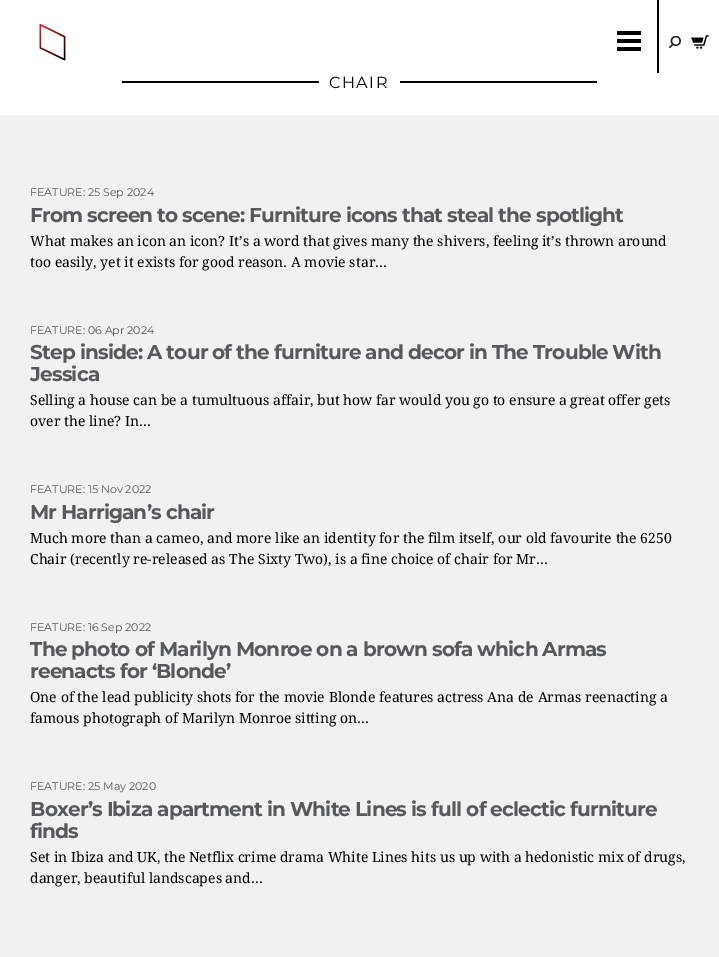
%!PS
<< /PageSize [719 957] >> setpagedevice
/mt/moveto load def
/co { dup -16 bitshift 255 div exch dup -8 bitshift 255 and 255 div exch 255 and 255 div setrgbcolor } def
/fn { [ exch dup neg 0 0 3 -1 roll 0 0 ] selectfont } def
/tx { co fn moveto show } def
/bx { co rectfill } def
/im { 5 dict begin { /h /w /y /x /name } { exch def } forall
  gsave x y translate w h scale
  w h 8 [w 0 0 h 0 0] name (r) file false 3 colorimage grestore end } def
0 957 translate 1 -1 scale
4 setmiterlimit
0 0 719 957 16#FFFFFF bx
(media/1.raw) 39 23 27 38 im
(media/2.raw) 617 31 24 20 im
657 0 2 73 16#000000 bx
(media/3.raw) 669 36 12 12 im
(media/4.raw) 691 35 18 14 im
122 81 475 2 16#000000 bx
319 81 81 2 16#FFFFFF bx
0 115 719 842 16#F1F1F2 bx
/Montserrat-Regular 16 fn
16#000000 co
329 88 mt 1.5 0 (CHAIR) ashow
(FEATURE: 25 Sep 2024) 30 196 /Montserrat-Regular 11 16#58595B tx
/Montserrat-Bold 20 fn
30 222 mt -.8 0 (From screen to scene: Furniture icons that steal the spotlight) ashow
(What makes an icon an icon? It’s a word that gives many the shivers, feeling it’s thrown around) 30 246 /DroidSerif-Regular 14 16#000000 tx
(too easily, yet it exists for good reason. A movie star...) 30 267 /DroidSerif-Regular 14 16#000000 tx
(FEATURE: 06 Apr 2024) 30 334 /Montserrat-Regular 11 16#58595B tx
/Montserrat-Bold 20 fn
30 359 mt -.8 0 (Step inside: A tour of the furniture and decor in The Trouble With) ashow
30 381 mt -.8 0 (Jessica) ashow
(Selling a house can be a tumultuous affair, but how far would you go to ensure a great offer gets) 30 405 /DroidSerif-Regular 14 16#000000 tx
(over the line? In...) 30 426 /DroidSerif-Regular 14 16#000000 tx
(FEATURE: 15 Nov 2022) 30 493 /Montserrat-Regular 11 16#58595B tx
/Montserrat-Bold 20 fn
30 519 mt -.8 0 (Mr Harrigan’s chair) ashow
(Much more than a cameo, and more like an identity for the film itself, our old favourite the 6250) 30 543 /DroidSerif-Regular 14 16#000000 tx
(Chair \(recently re-released as The Sixty Two\), is a fine choice of chair for Mr...) 30 564 /DroidSerif-Regular 14 16#000000 tx
(FEATURE: 16 Sep 2022) 30 631 /Montserrat-Regular 11 16#58595B tx
/Montserrat-Bold 20 fn
30 656 mt -.8 0 (The photo of Marilyn Monroe on a brown sofa which Armas) ashow
30 678 mt -.8 0 (reenacts for ‘Blonde’) ashow
(One of the lead publicity shots for the movie Blonde features actress Ana de Armas reenacting a) 30 702 /DroidSerif-Regular 14 16#000000 tx
(famous photograph of Marilyn Monroe sitting on...) 30 723 /DroidSerif-Regular 14 16#000000 tx
(FEATURE: 25 May 2020) 30 790 /Montserrat-Regular 11 16#58595B tx
/Montserrat-Bold 20 fn
30 816 mt -.8 0 (Boxer’s Ibiza apartment in White Lines is full of eclectic furniture) ashow
30 838 mt -.8 0 (finds) ashow
(Set in Ibiza and UK, the Netflix crime drama White Lines hits us up with a hedonistic mix of drugs,) 30 862 /DroidSerif-Regular 14 16#000000 tx
(danger, beautiful landscapes and...) 30 883 /DroidSerif-Regular 14 16#000000 tx
showpage
